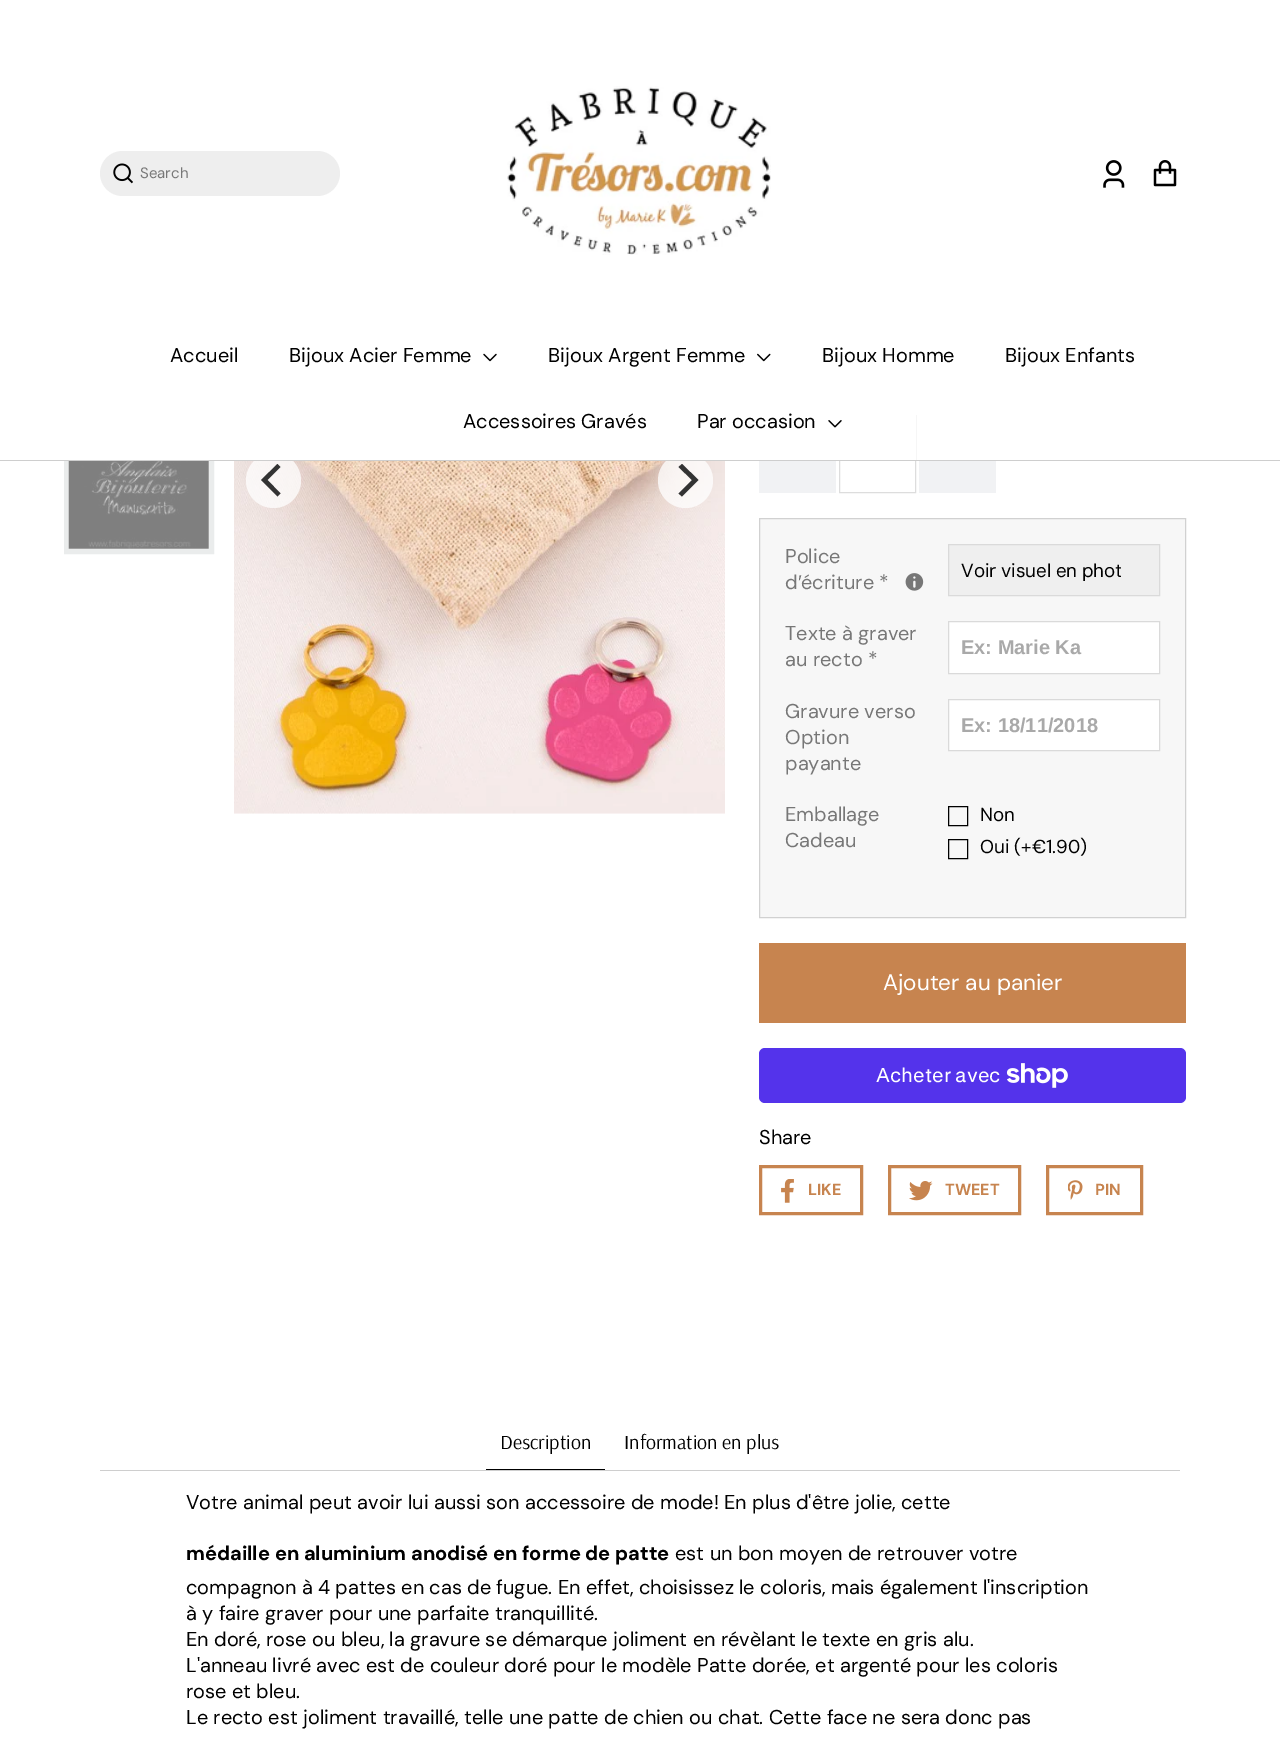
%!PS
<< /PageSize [1280 1742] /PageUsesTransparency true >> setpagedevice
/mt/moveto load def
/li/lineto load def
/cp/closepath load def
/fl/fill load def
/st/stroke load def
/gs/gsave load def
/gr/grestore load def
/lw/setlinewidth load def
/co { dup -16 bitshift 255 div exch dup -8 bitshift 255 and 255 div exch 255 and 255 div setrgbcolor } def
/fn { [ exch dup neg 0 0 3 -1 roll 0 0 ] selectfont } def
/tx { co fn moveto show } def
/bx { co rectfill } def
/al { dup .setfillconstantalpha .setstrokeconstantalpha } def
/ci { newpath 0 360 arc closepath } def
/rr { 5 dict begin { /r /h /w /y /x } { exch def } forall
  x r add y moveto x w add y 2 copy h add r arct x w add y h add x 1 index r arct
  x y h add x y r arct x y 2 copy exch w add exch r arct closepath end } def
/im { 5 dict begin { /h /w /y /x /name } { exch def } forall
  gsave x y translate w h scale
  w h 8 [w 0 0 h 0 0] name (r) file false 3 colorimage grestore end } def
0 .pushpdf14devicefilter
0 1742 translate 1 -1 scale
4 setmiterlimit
0 0 1280 1742 16#FFFFFF bx
16#EAECEC co
5 lw
66.5 356.5 145 195 rectstroke
(media/9.raw) 234 461 491 353 im
0.75 al
16#FFFFFF co
273.5 480.5 27.5 ci fl
685.5 480.5 27.5 ci fl
1 al
16#DDDDDD co
1 lw
839.5 415.5 76 77 rectstroke
64 354 852 106 16#FFFFFF bx
0 460 1280 1 16#CECECE bx
16#EEEEEE co
100 151 240 45 22.5 rr fl
(media/1.raw) 113 163 20 21 im
(media/2.raw) 507 86 264 169 im
(media/3.raw) 1103 160 22 28 im
(media/4.raw) 1153 160 24 27 im
(media/5.raw) 483 353 14 9 im
(media/6.raw) 757 353 14 9 im
(media/7.raw) 828 420 14 8 im
(media/8.raw) 68 461 141 88 im
16#333333 co
261 480 mt 277.5 496.5 li 280.5 493.5 li 267.5 480 li 280.5 467 li 277.5 464 li cp fl
698.5 480 mt 682 464 li 678.5 467 li 692 480 li 678.5 493.5 li 682 496.5 li cp fl
759 461 77 32 16#F1F2F4 bx
919 461 77 32 16#F1F2F4 bx
16#F7F7F7 co
759.5 518.5 mt 1185.5 518.5 li 1185.5 917.5 li 759.5 917.5 li cp gs fl gr
16#D1D1D1 co
st
(media/10.raw) 905 573 19 18 im
16#EFEFEF co
948.5 544.5 mt 1159.5 544.5 li 1159.5 595.5 li 948.5 595.5 li cp gs fl gr
16#DADADA co
st
16#FFFFFF co
948.5 621.5 mt 1159.5 621.5 li 1159.5 673.5 li 948.5 673.5 li cp gs fl gr
16#DADADA co
st
16#FFFFFF co
948.5 699.5 mt 1159.5 699.5 li 1159.5 750.5 li 948.5 750.5 li cp gs fl gr
16#DADADA co
st
16#000000 co
948.5 806.5 19 19 rectstroke
948.5 839.5 19 19 rectstroke
759 943 427 80 16#C7844F bx
16#5433EB co
759 1048 427 55 6 rr fl
(media/11.raw) 1006 1063 62 25 im
16#C7844F co
3 lw
760.5 1166.5 101 47 rectstroke
(media/12.raw) 781 1179 13 24 im
889.5 1166.5 130 47 rectstroke
(media/13.raw) 909 1181 24 20 im
1047.5 1166.5 94 47 rectstroke
(media/14.raw) 1068 1180 15 20 im
100 1470 1080 1 16#CECECE bx
486 1469 119 1 16#000000 bx
(Search) 140 178 /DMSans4-Regular 15 16#777777 tx
(Accueil) 170 362 /DMSans-Regular 20 16#000000 tx
(Bijoux Acier Femme) 289 362 /DMSans-Regular 20 16#000000 tx
(Bijoux Argent Femme) 548 362 /DMSans-Regular 20 16#000000 tx
(Bijoux Homme) 822 362 /DMSans-Regular 20 16#000000 tx
(Bijoux Enfants) 1005 362 /DMSans-Regular 20 16#000000 tx
(Accessoires Gravés) 463 428 /DMSans-Regular 20 16#000000 tx
(Par occasion) 697 428 /DMSans-Regular 20 16#000000 tx
(Police) 785 563 /DMSans-Regular 20 16#777777 tx
(d) 785 589 /DMSans-Regular 20 16#777777 tx
(′) 798 589 /LiberationSans-Regular 20 16#777777 tx
(écriture *) 801 589 /DMSans-Regular 20 16#777777 tx
gs
961 558 160 25 rectclip
/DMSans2-Regular 18.75 fn
16#000000 co
961 577 mt -.5 0 32 (Voir visuel en phot) widthshow
gr
(Texte à graver) 785 640 /DMSans-Regular 20 16#777777 tx
(au recto *) 785 666 /DMSans-Regular 20 16#777777 tx
(Ex: Marie Ka) 961 654 /LiberationSans-Bold 20 16#A9A9A9 tx
(Gravure verso) 785 718 /DMSans-Regular 20 16#777777 tx
(Option) 785 744 /DMSans-Regular 20 16#777777 tx
(payante) 785 770 /DMSans-Regular 20 16#777777 tx
(Ex: 18/11/2018) 961 732 /LiberationSans-Bold 20 16#A9A9A9 tx
(Emballage) 785 821 /DMSans-Regular 20 16#777777 tx
(Cadeau) 785 847 /DMSans-Regular 20 16#777777 tx
(Non) 980 821 /DMSans2-Regular 18.75 16#000000 tx
(Oui \(+€1.90\)) 980 853 /DMSans2-Regular 18.75 16#000000 tx
(Ajouter au panier) 883 990 /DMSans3-Regular 22.5 16#FFFFFF tx
(Acheter avec) 876 1082 /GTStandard-Regular 20 16#FFFFFF tx
(Share) 759 1144 /DMSans-Regular 20 16#000000 tx
(LIKE) 808 1195 /DMSans-Bold 16 16#C7844F tx
(TWEET) 945 1195 /DMSans-Bold 16 16#C7844F tx
(PIN) 1095 1195 /DMSans-Bold 16 16#C7844F tx
(Description) 500 1449 /Arsenal-Regular 20 16#000000 tx
(Information en plus) 624 1449 /Arsenal-Regular 20 16#000000 tx
(Votre animal peut avoir lui aussi son accessoire de mode! En plus d'être jolie, cette) 186 1509 /DMSans-Regular 20 16#000000 tx
(médaille en aluminium anodisé en forme de patte) 186 1560 /DMSans2-Bold 20 16#000000 tx
(est un bon moyen de retrouver votre) 675 1560 /DMSans-Regular 20 16#000000 tx
(compagnon à 4 pattes en cas de fugue. En effet, choisissez le coloris, mais également l'inscription) 186 1594 /DMSans-Regular 20 16#000000 tx
(à y faire graver pour une parfaite tranquillité.) 186 1620 /DMSans-Regular 20 16#000000 tx
(En doré, rose ou bleu, la gravure se démarque joliment en révèlant le texte en gris alu.) 186 1646 /DMSans-Regular 20 16#000000 tx
(L'anneau livré avec est de couleur doré pour le modèle Patte dorée, et argenté pour les coloris) 186 1672 /DMSans-Regular 20 16#000000 tx
(rose et bleu.) 186 1698 /DMSans-Regular 20 16#000000 tx
(Le recto est joliment travaillé, telle une patte de chien ou chat. Cette face ne sera donc pas) 186 1724 /DMSans-Regular 20 16#000000 tx
.poppdf14devicefilter showpage
